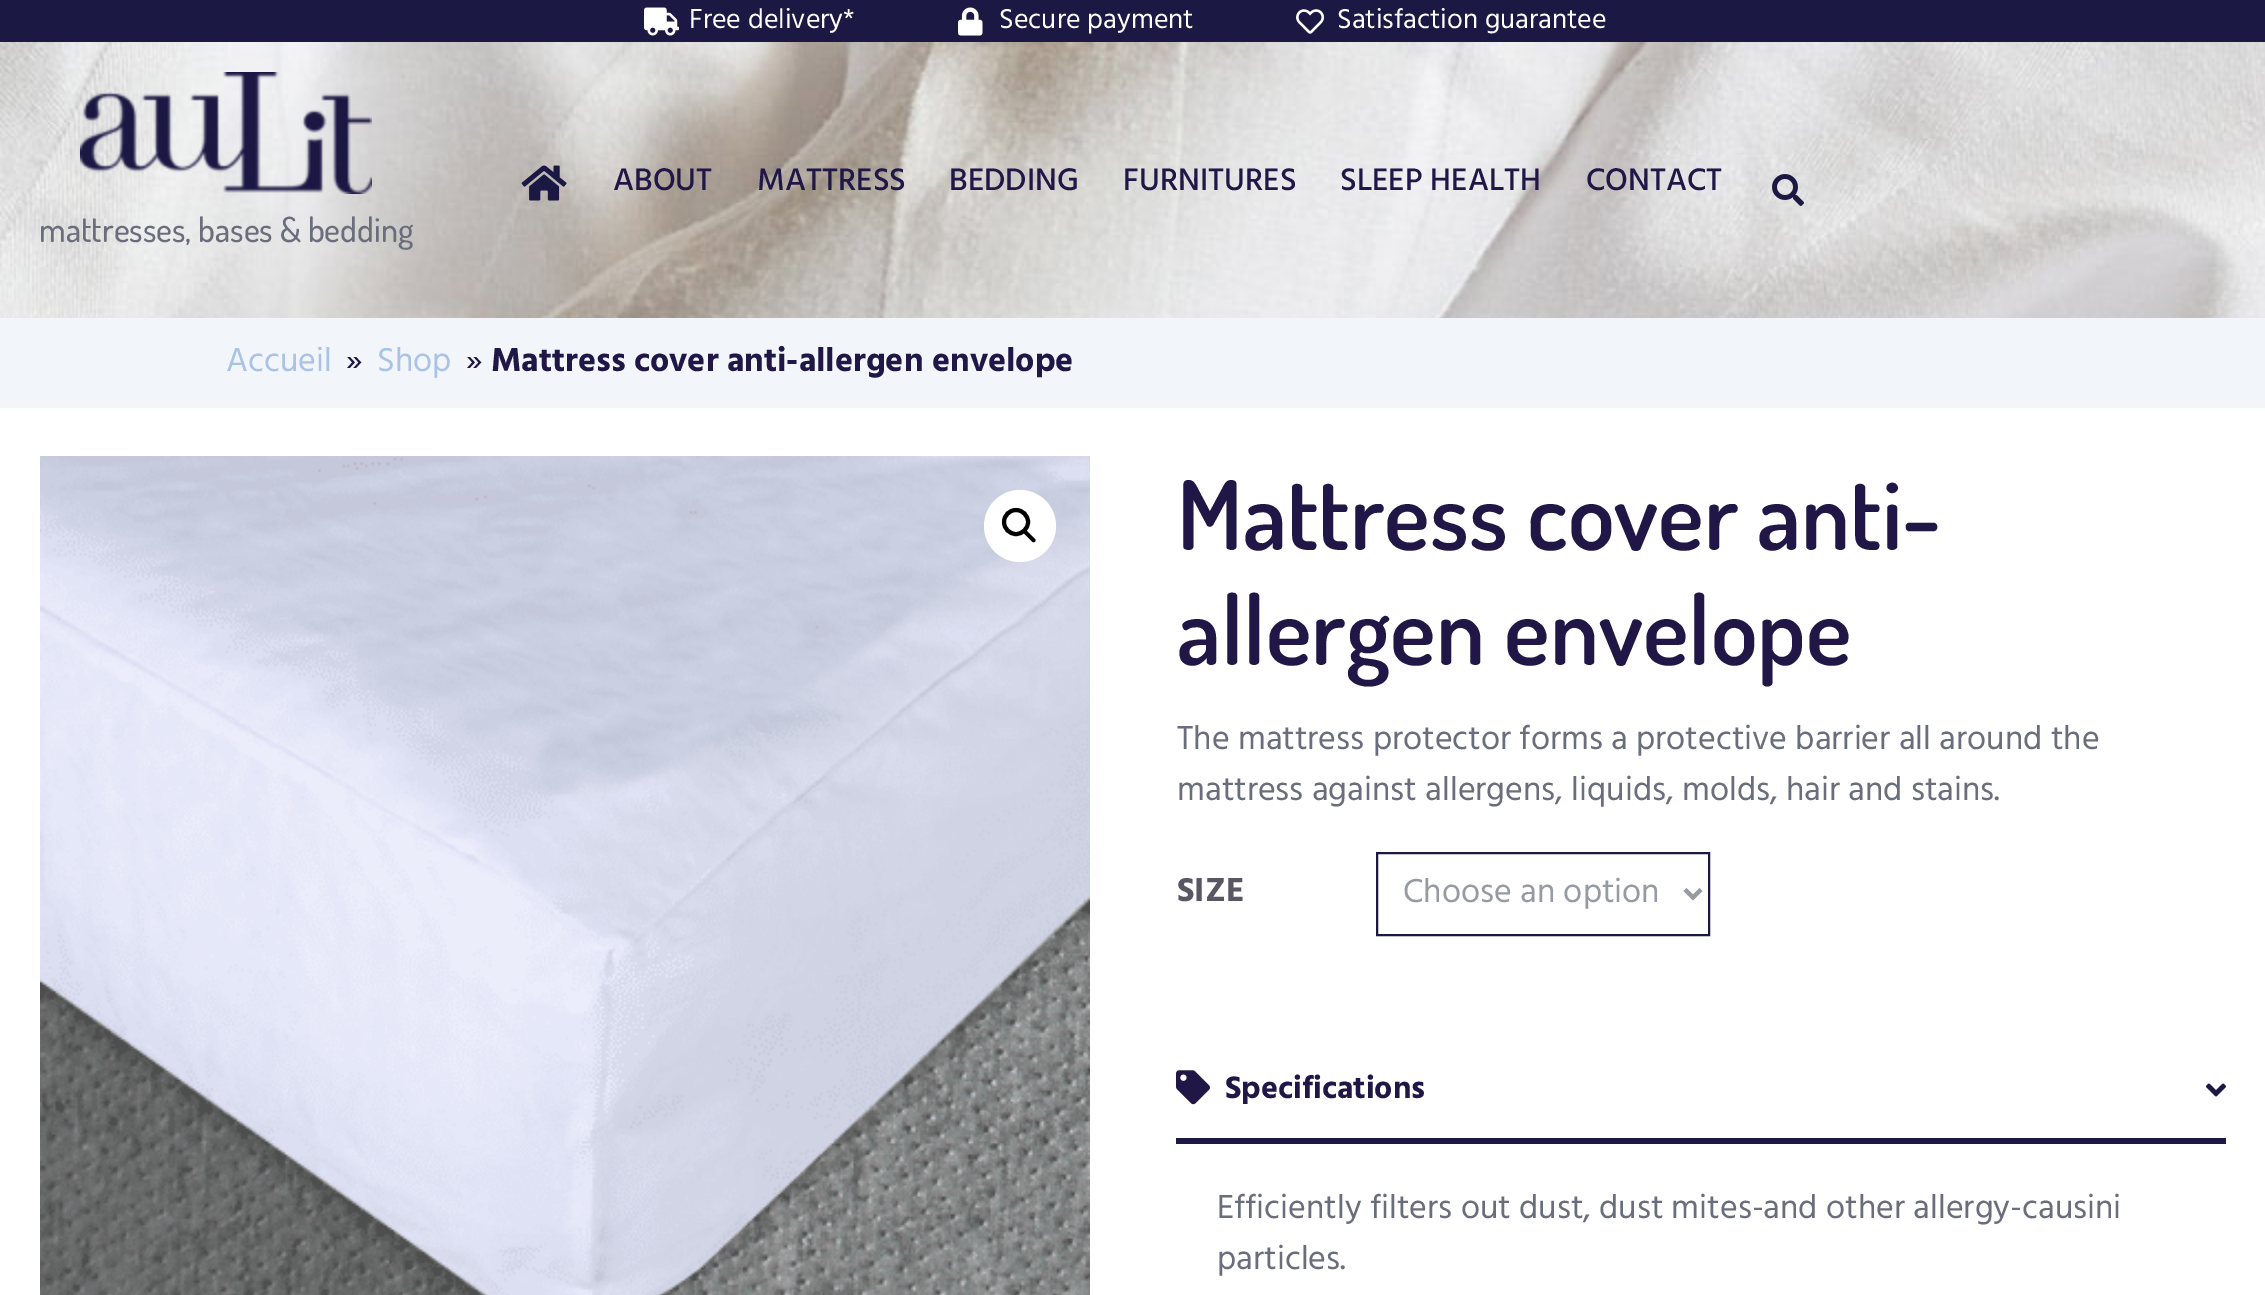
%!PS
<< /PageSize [2265 1295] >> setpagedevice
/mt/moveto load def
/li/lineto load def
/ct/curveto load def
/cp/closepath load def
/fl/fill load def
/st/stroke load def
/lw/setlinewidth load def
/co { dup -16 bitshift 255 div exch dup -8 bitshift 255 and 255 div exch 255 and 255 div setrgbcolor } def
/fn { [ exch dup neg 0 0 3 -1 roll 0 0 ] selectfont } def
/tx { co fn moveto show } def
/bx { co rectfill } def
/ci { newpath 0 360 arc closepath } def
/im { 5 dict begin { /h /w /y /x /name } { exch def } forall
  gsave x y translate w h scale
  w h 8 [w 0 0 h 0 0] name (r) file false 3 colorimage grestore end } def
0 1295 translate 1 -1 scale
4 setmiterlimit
0 0 2265 1295 16#FFFFFF bx
0 0 2265 42 16#1C1844 bx
(media/1.raw) 644 7 35 29 im
(media/2.raw) 958 7 25 29 im
(media/3.raw) 1296 9 29 25 im
(media/4.raw) 0 42 2265 276 im
(media/5.raw) 521 165 46 36 im
(media/6.raw) 1772 174 32 32 im
(media/7.raw) 80 72 292 122 im
0 318 2265 90 16#F2F6FB bx
(media/8.raw) 40 456 1050 839 im
16#FFFFFF co
1020 526 36 ci fl
16#000000 co
4 lw
1016 522 12 ci st
1023.5 530.5 mt 1024.5 529.5 1025.5 529.5 1026.5 530.5 ct 1035 539 li 1035.5 539.5 1035.5 541 1035 541.5 ct 1034 542.5 1033 542.5 1032 541.5 ct 1023.5 533 li 1023 532.5 1023 531 1023.5 530.5 ct cp fl
16#1C1844 co
2 lw
1377 853 332 82 rectstroke
16#959AA3 co
4 lw
1685 889.5 mt 1693 897.5 li 1701 889.5 li st
1176 1138 1050 6 16#1C1844 bx
(media/9.raw) 1176 1070 34 35 im
(media/10.raw) 2206 1083 20 14 im
(Free delivery*) 689 28 /Hind-Regular 28 16#FFFFFF tx
(Secure payment) 999 28 /Hind-Regular 28 16#FFFFFF tx
(Satisfaction guarantee) 1337 28 /Hind-Regular 28 16#FFFFFF tx
(ABOUT) 613 190 /Hind-Medium 32 16#201747 tx
(MATTRESS) 757 190 /Hind-Medium 32 16#201747 tx
(BEDDING) 949 190 /Hind-Medium 32 16#201747 tx
(FURNITURES) 1123 190 /Hind-Medium 32 16#201747 tx
(SLEEP HEALTH) 1340 190 /Hind-Medium 32 16#201747 tx
(CONTACT) 1586 190 /Hind-Medium 32 16#201747 tx
(mattresses, bases & bedding) 39 242 /Dosis-Medium 34 16#6A6D7B tx
(Accueil) 226 371 /Hind-Regular 34 16#A9C2E5 tx
(») 346 371 /Hind-Regular 34 16#201747 tx
(Shop) 377 371 /Hind-Regular 34 16#A9C2E5 tx
(») 466 371 /Hind-Regular 34 16#201747 tx
(Mattress cover anti-allergen envelope) 491 371 /Hind-Bold 34 16#201747 tx
(Mattress cover anti-) 1177 550 /Dosis-SemiBold 96 16#201747 tx
(allergen envelope) 1177 665 /Dosis-SemiBold 96 16#201747 tx
(The mattress protector forms a protective barrier all around the) 1177 749 /Hind-Regular 34 16#6A6D7B tx
(mattress against allergens, liquids, molds, hair and stains.) 1177 800 /Hind-Regular 34 16#6A6D7B tx
(SIZE) 1177 901 /Hind-Bold 34 16#585763 tx
(Choose an option) 1403 902 /Hind-Regular 34 16#959AA3 tx
(Specifications) 1225 1098 /Hind-Bold 32 16#201747 tx
(Efficiently filters out dust, dust mites-and other allergy-causini) 1217 1218 /Hind-Regular 34 16#6A6D7B tx
(particles.) 1217 1269 /Hind-Regular 34 16#6A6D7B tx
showpage
